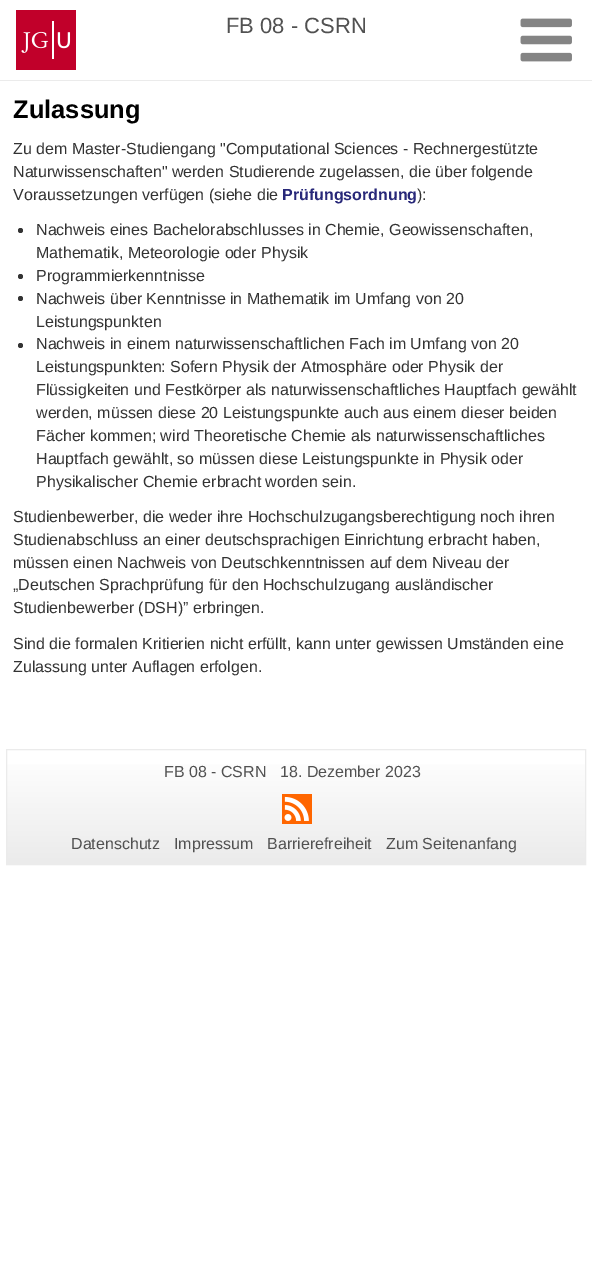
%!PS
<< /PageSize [592 1267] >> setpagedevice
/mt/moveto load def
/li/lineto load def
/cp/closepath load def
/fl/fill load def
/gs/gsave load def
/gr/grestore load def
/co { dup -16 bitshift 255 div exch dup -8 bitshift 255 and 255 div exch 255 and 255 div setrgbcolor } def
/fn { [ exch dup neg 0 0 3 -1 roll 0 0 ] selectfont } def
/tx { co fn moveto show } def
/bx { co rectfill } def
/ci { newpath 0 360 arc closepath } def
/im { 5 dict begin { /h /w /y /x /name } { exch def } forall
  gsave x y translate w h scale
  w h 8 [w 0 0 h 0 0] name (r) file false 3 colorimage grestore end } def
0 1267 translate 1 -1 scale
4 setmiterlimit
0 0 592 1267 16#FFFFFF bx
0 80 592 1 16#EBEBEB bx
(media/1.raw) 16 10 60 60 im
(media/2.raw) 520 18 52 44 im
16#333333 co
20.5 230.5 2.5 ci fl
20.5 276.5 2.5 ci fl
20.5 298.5 2.5 ci fl
20.5 345.5 2.5 ci fl
gs 7 764 mt 585 764 li 585 864 li 7 864 li cp clip newpath
<< /ShadingType 2 /ColorSpace /DeviceRGB /Coords [296 864 296 750] /Extend [true true] /Function << /FunctionType 2 /Domain [0 1] /C0 [.922 .922 .922] /C1 [1 1 1] /N 1 >> >> shfill gr
16#EBEBEB co
6.5 749.5 579 115 rectstroke
(media/3.raw) 282 794 30 30 im
(FB 08 - CSRN) 226 33 /LiberationSans-Regular 22 16#515151 tx
(Zulassung) 13 118 /LiberationSans-Bold 25.5 16#000000 tx
(Zu dem Master-Studiengang "Computational Sciences - Rechnergestützte) 13 154 /LiberationSans-Regular 16 16#333333 tx
(Naturwissenschaften" werden Studierende zugelassen, die über folgende) 13 177 /LiberationSans-Regular 16 16#333333 tx
(Voraussetzungen verfügen \(siehe die) 13 200 /LiberationSans-Regular 16 16#333333 tx
(Prüfungsordnung) 282 200 /LiberationSans-Bold 16 16#282879 tx
(\):) 417 200 /LiberationSans-Regular 16 16#333333 tx
(Nachweis eines Bachelorabschlusses in Chemie, Geowissenschaften,) 36 235 /LiberationSans-Regular 16 16#333333 tx
(Mathematik, Meteorologie oder Physik) 36 258 /LiberationSans-Regular 16 16#333333 tx
(Programmierkenntnisse) 36 281 /LiberationSans-Regular 16 16#333333 tx
(Nachweis über Kenntnisse in Mathematik im Umfang von 20) 36 304 /LiberationSans-Regular 16 16#333333 tx
(Leistungspunkten) 36 327 /LiberationSans-Regular 16 16#333333 tx
(Nachweis in einem naturwissenschaftlichen Fach im Umfang von 20) 36 349 /LiberationSans-Regular 16 16#333333 tx
(Leistungspunkten: Sofern Physik der Atmosphäre oder Physik der) 36 372 /LiberationSans-Regular 16 16#333333 tx
(Flüssigkeiten und Festkörper als naturwissenschaftliches Hauptfach gewählt) 36 395 /LiberationSans-Regular 16 16#333333 tx
(werden, müssen diese 20 Leistungspunkte auch aus einem dieser beiden) 36 418 /LiberationSans-Regular 16 16#333333 tx
(Fächer kommen; wird Theoretische Chemie als naturwissenschaftliches) 36 441 /LiberationSans-Regular 16 16#333333 tx
(Hauptfach gewählt, so müssen diese Leistungspunkte in Physik oder) 36 464 /LiberationSans-Regular 16 16#333333 tx
(Physikalischer Chemie erbracht worden sein.) 36 487 /LiberationSans-Regular 16 16#333333 tx
(Studienbewerber, die weder ihre Hochschulzugangsberechtigung noch ihren) 13 522 /LiberationSans-Regular 16 16#333333 tx
(Studienabschluss an einer deutschsprachigen Einrichtung erbracht haben,) 13 545 /LiberationSans-Regular 16 16#333333 tx
(müssen einen Nachweis von Deutschkenntnissen auf dem Niveau der) 13 568 /LiberationSans-Regular 16 16#333333 tx
(„Deutschen Sprachprüfung für den Hochschulzugang ausländischer) 13 590 /LiberationSans-Regular 16 16#333333 tx
(Studienbewerber \(DSH\)” erbringen.) 13 613 /LiberationSans-Regular 16 16#333333 tx
(Sind die formalen Kritierien nicht erfüllt, kann unter gewissen Umständen eine) 13 649 /LiberationSans-Regular 16 16#333333 tx
(Zulassung unter Auflagen erfolgen.) 13 672 /LiberationSans-Regular 16 16#333333 tx
(FB 08 - CSRN) 164 777 /LiberationSans-Regular 16 16#515151 tx
(18. Dezember 2023) 280 777 /LiberationSans-Regular 16 16#515151 tx
(Datenschutz) 71 849 /LiberationSans-Regular 16 16#515151 tx
(Impressum) 174 849 /LiberationSans-Regular 16 16#515151 tx
(Barrierefreiheit) 267 849 /LiberationSans-Regular 16 16#515151 tx
(Zum Seitenanfang) 386 849 /LiberationSans-Regular 16 16#515151 tx
showpage
